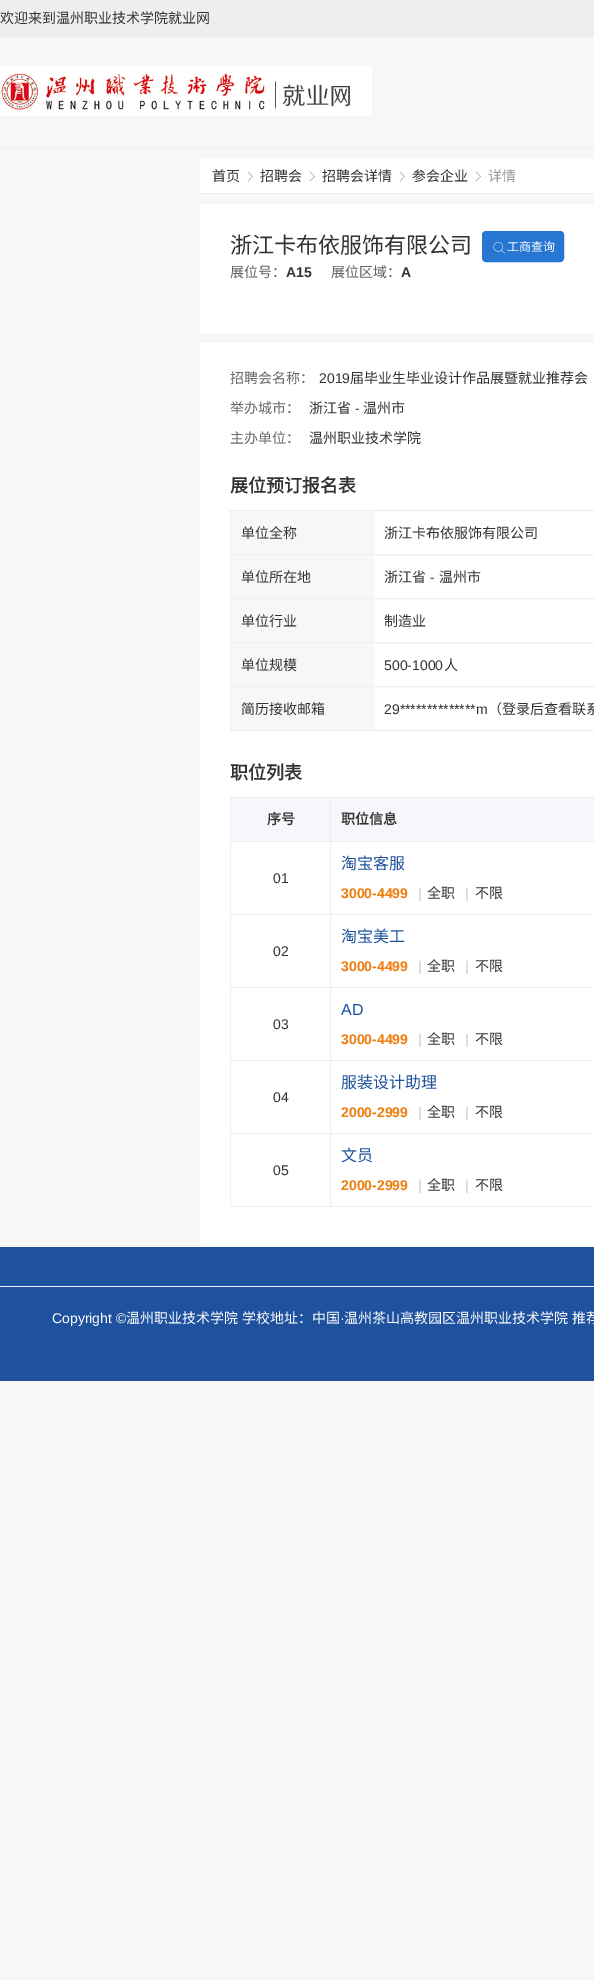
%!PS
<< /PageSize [594 1980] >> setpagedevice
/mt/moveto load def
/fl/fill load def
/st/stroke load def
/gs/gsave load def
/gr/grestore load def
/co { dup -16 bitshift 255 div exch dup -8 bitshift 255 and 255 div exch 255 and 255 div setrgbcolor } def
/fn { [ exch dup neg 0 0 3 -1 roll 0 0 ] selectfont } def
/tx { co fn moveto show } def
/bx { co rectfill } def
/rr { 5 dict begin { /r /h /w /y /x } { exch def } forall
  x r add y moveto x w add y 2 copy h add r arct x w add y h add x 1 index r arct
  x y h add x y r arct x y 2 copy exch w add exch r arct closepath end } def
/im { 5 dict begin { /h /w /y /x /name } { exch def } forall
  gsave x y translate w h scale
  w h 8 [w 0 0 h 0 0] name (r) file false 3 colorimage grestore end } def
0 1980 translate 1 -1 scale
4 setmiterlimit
0 0 594 1980 16#F8F7F5 bx
0 0 594 37 16#EEEEEE bx
0 147 594 1 16#EEEEEE bx
(media/1.raw) 0 66 372 50 im
16#FFFFFF co
200 158 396 36 2 rr fl
201 193 393 1 16#EEEEEE bx
(media/2.raw) 247 171 6 11 im
(media/2.raw) 309 171 6 11 im
(media/2.raw) 399 171 6 11 im
(media/2.raw) 475 171 6 11 im
200 204 394 1043 16#FFFFFF bx
16#2676D2 co
482.5 231.5 81 30 3.5 rr gs fl gr
st
(media/3.raw) 493 242 12 12 im
200 333 394 10 16#F8F7F5 bx
16#EEEEEE co
230.5 510.5 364 44 rectstroke
231 511 143 43 16#F7F7F7 bx
16#EEEEEE co
230.5 554.5 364 44 rectstroke
231 555 143 43 16#F7F7F7 bx
16#EEEEEE co
230.5 598.5 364 44 rectstroke
231 599 143 43 16#F7F7F7 bx
16#EEEEEE co
230.5 642.5 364 44 rectstroke
231 643 143 43 16#F7F7F7 bx
16#EEEEEE co
230.5 686.5 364 44 rectstroke
231 687 143 43 16#F7F7F7 bx
231 798 363 43 16#F5F7FA bx
330 797 264 1 16#EBEEF5 bx
330 841 264 1 16#EBEEF5 bx
330 914 264 1 16#EBEEF5 bx
330 987 264 1 16#EBEEF5 bx
330 1060 264 1 16#EBEEF5 bx
330 1133 264 1 16#EBEEF5 bx
330 1206 264 1 16#EBEEF5 bx
330 1133 1 74 16#EBEEF5 bx
230 1133 101 1 16#EBEEF5 bx
330 1060 1 74 16#EBEEF5 bx
230 1060 101 1 16#EBEEF5 bx
330 987 1 74 16#EBEEF5 bx
230 987 101 1 16#EBEEF5 bx
330 914 1 74 16#EBEEF5 bx
230 914 101 1 16#EBEEF5 bx
330 841 1 74 16#EBEEF5 bx
230 841 101 1 16#EBEEF5 bx
330 797 1 45 16#EBEEF5 bx
230 797 101 1 16#EBEEF5 bx
230 1206 101 1 16#EBEEF5 bx
230 1133 1 74 16#EBEEF5 bx
230 1060 1 74 16#EBEEF5 bx
230 987 1 74 16#EBEEF5 bx
230 914 1 74 16#EBEEF5 bx
230 841 1 74 16#EBEEF5 bx
230 797 1 45 16#EBEEF5 bx
0 1247 594 134 16#1E529E bx
0 1286 594 1 16#EEEEEE bx
(欢迎来到温州职业技术学院就业网) 0 23 /NotoSansCJKSC-Regular 14 16#333333 tx
(首页) 212 181 /NotoSansCJKSC-Regular 14 16#333333 tx
(招聘会) 260 181 /NotoSansCJKSC-Regular 14 16#333333 tx
(招聘会详情) 322 181 /NotoSansCJKSC-Regular 14 16#333333 tx
(参会企业) 412 181 /NotoSansCJKSC-Regular 14 16#333333 tx
(详情) 488 181 /NotoSansCJKSC-Regular 14 16#999999 tx
(浙江卡布依服饰有限公司) 230 253 /NotoSansCJKSC-Regular 22 16#333333 tx
(工商查询) 507 251 /NotoSansCJKSC-Regular 12 16#FFFFFF tx
(展位号：) 230 277 /NotoSansCJKSC-Regular 14 16#606266 tx
(A15) 286 277 /LiberationSans-Bold 14 16#333333 tx
(展位区域：) 331 277 /NotoSansCJKSC-Regular 14 16#606266 tx
(A) 401 277 /LiberationSans-Bold 14 16#333333 tx
(招聘会名称：) 230 383 /NotoSansCJKSC-Regular 14 16#666666 tx
(2019) 319 383 /LiberationSans-Regular 14 16#333333 tx
(届毕业生毕业设计作品展暨就业推荐会) 350 383 /NotoSansCJKSC-Regular 14 16#333333 tx
(举办城市：) 230 413 /NotoSansCJKSC-Regular 14 16#666666 tx
(浙江省) 309 413 /NotoSansCJKSC-Regular 14 16#333333 tx
(-) 355 413 /LiberationSans-Regular 14 16#333333 tx
(温州市) 363 413 /NotoSansCJKSC-Regular 14 16#333333 tx
(主办单位：) 230 443 /NotoSansCJKSC-Regular 14 16#666666 tx
(温州职业技术学院) 309 443 /NotoSansCJKSC-Regular 14 16#333333 tx
(展位预订报名表) 230 492 /NotoSansCJKSC-Bold 18 16#333333 tx
(单位全称) 241 538 /NotoSansCJKSC-Regular 14 16#333333 tx
(浙江卡布依服饰有限公司) 384 538 /NotoSansCJKSC-Regular 14 16#333333 tx
(单位所在地) 241 582 /NotoSansCJKSC-Regular 14 16#333333 tx
(浙江省) 384 582 /NotoSansCJKSC-Regular 14 16#333333 tx
(-) 430 582 /LiberationSans-Regular 14 16#333333 tx
(温州市) 439 582 /NotoSansCJKSC-Regular 14 16#333333 tx
(单位行业) 241 626 /NotoSansCJKSC-Regular 14 16#333333 tx
(制造业) 384 626 /NotoSansCJKSC-Regular 14 16#333333 tx
(单位规模) 241 670 /NotoSansCJKSC-Regular 14 16#333333 tx
(500-1000) 384 670 /LiberationSans-Regular 14 16#333333 tx
(人) 444 670 /NotoSansCJKSC-Regular 14 16#333333 tx
(简历接收邮箱) 241 714 /NotoSansCJKSC-Regular 14 16#333333 tx
(29**************m) 384 714 /LiberationSans-Regular 14 16#333333 tx
(（登录后查看联系) 488 714 /NotoSansCJKSC-Regular 14 16#333333 tx
(职位列表) 230 779 /NotoSansCJKSC-Bold 18 16#333333 tx
(序号) 267 824 /NotoSansCJKSC-Bold 14 16#333333 tx
(职位信息) 341 824 /NotoSansCJKSC-Bold 14 16#333333 tx
(01) 273 883 /LiberationSans-Regular 14 16#333333 tx
(淘宝客服) 341 869 /NotoSansCJKSC-Regular 16 16#1E529E tx
(3000-4499) 341 898 /LiberationSans-Bold 14 16#EF7D0D tx
(|) 418 898 /LiberationSans-Regular 14 16#CCCCCC tx
(全职) 427 898 /NotoSansCJKSC-Regular 14 16#333333 tx
(|) 465 898 /LiberationSans-Regular 14 16#CCCCCC tx
(不限) 475 898 /NotoSansCJKSC-Regular 14 16#333333 tx
(02) 273 956 /LiberationSans-Regular 14 16#333333 tx
(淘宝美工) 341 942 /NotoSansCJKSC-Regular 16 16#1E529E tx
(3000-4499) 341 971 /LiberationSans-Bold 14 16#EF7D0D tx
(|) 418 971 /LiberationSans-Regular 14 16#CCCCCC tx
(全职) 427 971 /NotoSansCJKSC-Regular 14 16#333333 tx
(|) 465 971 /LiberationSans-Regular 14 16#CCCCCC tx
(不限) 475 971 /NotoSansCJKSC-Regular 14 16#333333 tx
(03) 273 1029 /LiberationSans-Regular 14 16#333333 tx
(AD) 341 1015 /LiberationSans-Regular 16 16#1E529E tx
(3000-4499) 341 1044 /LiberationSans-Bold 14 16#EF7D0D tx
(|) 418 1044 /LiberationSans-Regular 14 16#CCCCCC tx
(全职) 427 1044 /NotoSansCJKSC-Regular 14 16#333333 tx
(|) 465 1044 /LiberationSans-Regular 14 16#CCCCCC tx
(不限) 475 1044 /NotoSansCJKSC-Regular 14 16#333333 tx
(04) 273 1102 /LiberationSans-Regular 14 16#333333 tx
(服装设计助理) 341 1088 /NotoSansCJKSC-Regular 16 16#1E529E tx
(2000-2999) 341 1117 /LiberationSans-Bold 14 16#EF7D0D tx
(|) 418 1117 /LiberationSans-Regular 14 16#CCCCCC tx
(全职) 427 1117 /NotoSansCJKSC-Regular 14 16#333333 tx
(|) 465 1117 /LiberationSans-Regular 14 16#CCCCCC tx
(不限) 475 1117 /NotoSansCJKSC-Regular 14 16#333333 tx
(05) 273 1175 /LiberationSans-Regular 14 16#333333 tx
(文员) 341 1161 /NotoSansCJKSC-Regular 16 16#1E529E tx
(2000-2999) 341 1190 /LiberationSans-Bold 14 16#EF7D0D tx
(|) 418 1190 /LiberationSans-Regular 14 16#CCCCCC tx
(全职) 427 1190 /NotoSansCJKSC-Regular 14 16#333333 tx
(|) 465 1190 /LiberationSans-Regular 14 16#CCCCCC tx
(不限) 475 1190 /NotoSansCJKSC-Regular 14 16#333333 tx
(Copyright ©) 52 1323 /LiberationSans-Regular 14 16#FFFFFF tx
(温州职业技术学院) 126 1323 /NotoSansCJKSC-Regular 14 16#FFFFFF tx
(学校地址：中国) 242 1323 /NotoSansCJKSC-Regular 14 16#FFFFFF tx
(·) 340 1323 /LiberationSans-Regular 14 16#FFFFFF tx
/NotoSansCJKSC-Regular 14 fn
344 1323 mt 1 0 32 (温州茶山高教园区温州职业技术学院 推荐) widthshow
showpage
